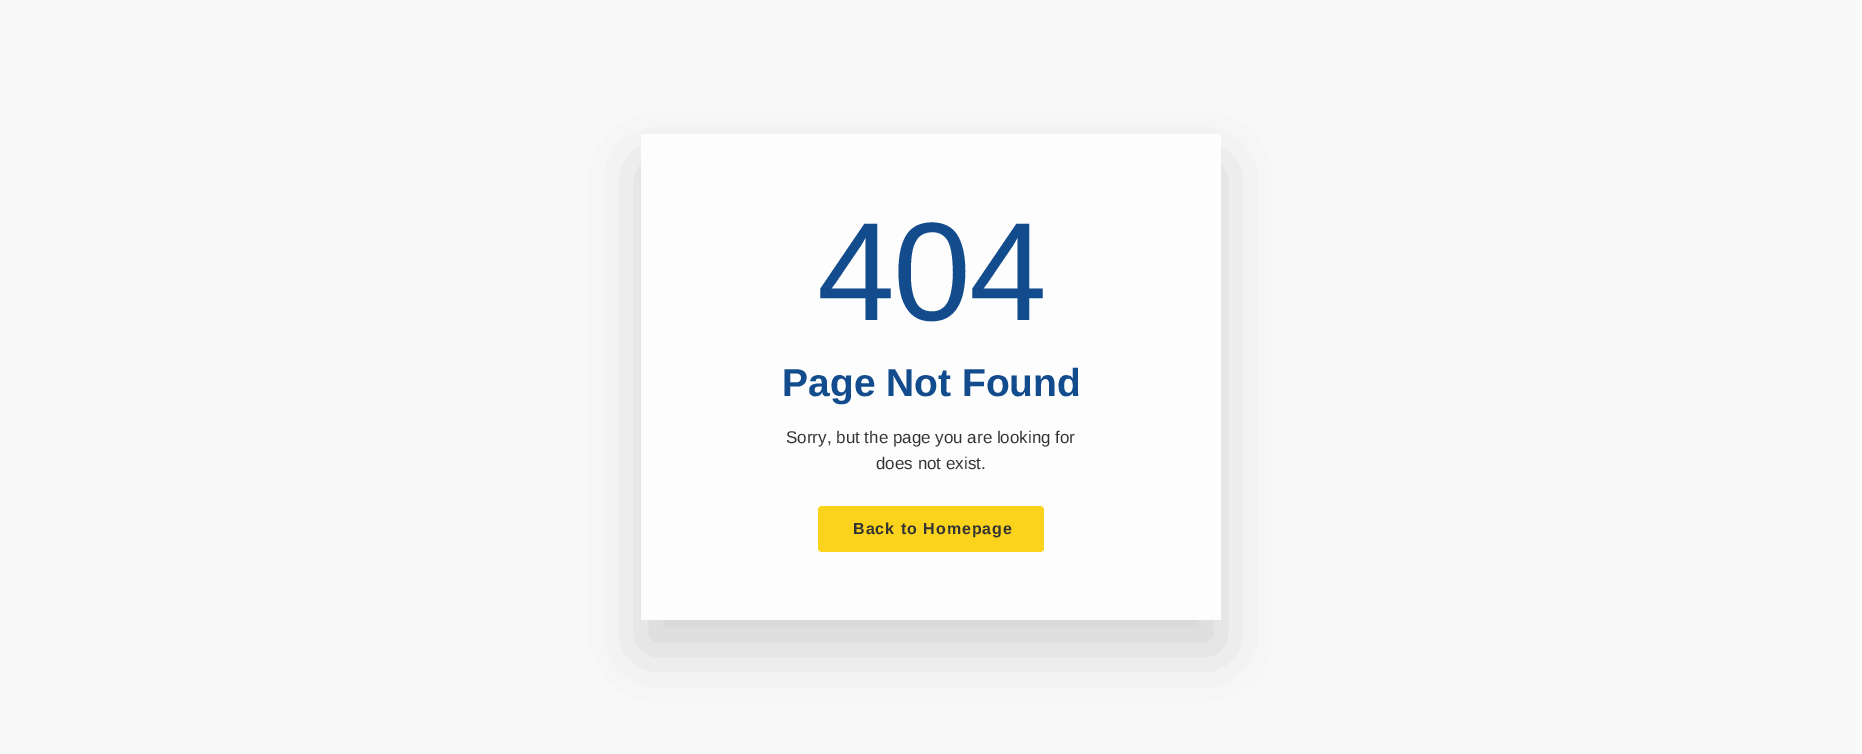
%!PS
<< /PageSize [1862 754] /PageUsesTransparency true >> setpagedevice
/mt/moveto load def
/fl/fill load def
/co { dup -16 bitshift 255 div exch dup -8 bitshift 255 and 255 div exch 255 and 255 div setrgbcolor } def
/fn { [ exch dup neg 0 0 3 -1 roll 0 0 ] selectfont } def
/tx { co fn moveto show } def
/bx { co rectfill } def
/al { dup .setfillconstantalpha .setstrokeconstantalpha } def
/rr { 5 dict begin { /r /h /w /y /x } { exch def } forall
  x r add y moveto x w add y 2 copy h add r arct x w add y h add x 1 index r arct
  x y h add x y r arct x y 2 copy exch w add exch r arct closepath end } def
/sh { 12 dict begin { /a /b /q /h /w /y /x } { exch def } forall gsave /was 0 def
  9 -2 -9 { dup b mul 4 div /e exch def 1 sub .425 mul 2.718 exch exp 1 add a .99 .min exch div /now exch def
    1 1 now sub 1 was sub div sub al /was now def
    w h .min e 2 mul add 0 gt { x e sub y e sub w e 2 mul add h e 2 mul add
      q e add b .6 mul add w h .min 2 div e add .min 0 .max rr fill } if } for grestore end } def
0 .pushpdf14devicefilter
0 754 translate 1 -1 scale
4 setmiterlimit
0 0 1862 754 16#F9F9F9 bx
16#000000 co
641 164 580 486 0 30 .15 sh
641 134 580 486 16#FDFDFD bx
16#FCD31C co
818 506 226 46 4 rr fl
/LiberationSans-Regular 140 fn
16#134C8C co
817 320 mt -2 0 (404) ashow
(Page Not Found) 782 396 /LiberationSans-Bold 39 16#134C8C tx
(Sorry, but the page you are looking for) 786 443 /LiberationSans-Regular 17 16#333333 tx
(does not exist.) 876 469 /LiberationSans-Regular 17 16#333333 tx
/LiberationSans-Bold 16 fn
853 534 mt 1 0 (Back to Homepage) ashow
.poppdf14devicefilter showpage
